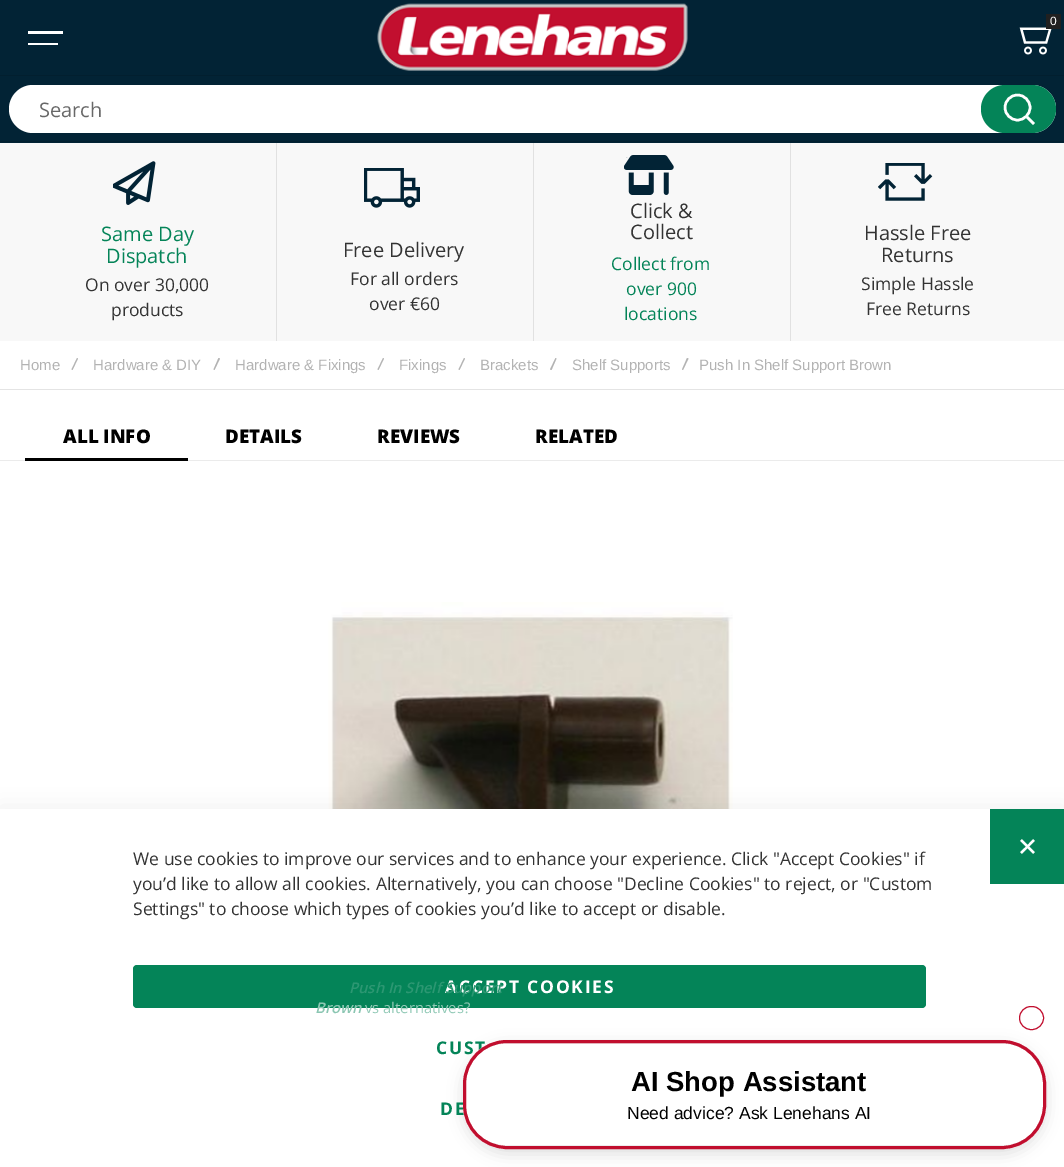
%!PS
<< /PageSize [1064 1167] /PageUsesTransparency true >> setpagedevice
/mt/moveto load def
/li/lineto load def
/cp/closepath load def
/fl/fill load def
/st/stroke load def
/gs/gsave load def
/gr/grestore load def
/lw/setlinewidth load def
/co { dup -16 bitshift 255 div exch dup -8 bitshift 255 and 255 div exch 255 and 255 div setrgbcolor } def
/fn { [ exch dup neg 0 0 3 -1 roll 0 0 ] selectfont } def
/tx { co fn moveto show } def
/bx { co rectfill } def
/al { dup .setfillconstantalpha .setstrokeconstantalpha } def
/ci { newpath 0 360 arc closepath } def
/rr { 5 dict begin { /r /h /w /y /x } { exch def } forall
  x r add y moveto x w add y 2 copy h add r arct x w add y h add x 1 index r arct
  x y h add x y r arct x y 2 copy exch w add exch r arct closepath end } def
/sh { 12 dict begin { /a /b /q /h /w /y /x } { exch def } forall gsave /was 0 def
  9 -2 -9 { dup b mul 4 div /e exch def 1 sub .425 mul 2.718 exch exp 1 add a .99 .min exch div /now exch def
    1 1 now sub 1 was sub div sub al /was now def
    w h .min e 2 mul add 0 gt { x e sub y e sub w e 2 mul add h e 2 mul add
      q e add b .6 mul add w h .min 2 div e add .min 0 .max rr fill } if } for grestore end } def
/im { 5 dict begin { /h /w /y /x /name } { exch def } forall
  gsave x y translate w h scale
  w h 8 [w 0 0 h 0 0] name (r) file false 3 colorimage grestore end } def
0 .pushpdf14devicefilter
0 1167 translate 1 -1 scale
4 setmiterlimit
0 0 1064 1167 16#FFFFFF bx
0 0 1064 143 16#022335 bx
0 141 1064 1 16#021F2F bx
(media/1.raw) 377 3 311 68 im
(media/2.raw) 1019 27 33 28 im
1046 14 15 15 16#202020 bx
28 31 35 3 16#FFFFFF bx
28 43 30 2 16#FFFFFF bx
0 75 1064 1 16#021F2F bx
16#FFFFFF co
9 85 1047 48 24 rr fl
16#048458 co
981 85 75 48 24 rr fl
16#FFFFFF co
2.5 lw
1017.5 107.5 12.5 ci st
1034 124 mt 1027 117 li st
0 143 1064 198 16#F8F8F8 bx
(media/3.raw) 113 161 43 44 im
276 143 1 198 16#E1E1E1 bx
(media/4.raw) 364 168 56 40 im
533 143 1 198 16#E1E1E1 bx
(media/5.raw) 624 155 50 40 im
790 143 1 198 16#E1E1E1 bx
(media/6.raw) 878 163 55 38 im
0 389 1064 1 16#E4E4E4 bx
16#B3B3B3 co
77 358 mt 78 358.5 li 72.5 370 li 71.5 369.5 li cp fl
218.5 358 mt 220 358.5 li 214.5 370 li 213.5 369.5 li cp fl
383 358 mt 384 358.5 li 378.5 370 li 377.5 369.5 li cp fl
464 358 mt 465 358.5 li 459.5 370 li 458.5 369.5 li cp fl
555.5 358 mt 556.5 358.5 li 551.5 370 li 550 369.5 li cp fl
687 358 mt 688.5 358.5 li 683 370 li 682 369.5 li cp fl
0 460 1064 1 16#EBEBEB bx
25 458 163 3 16#000000 bx
(media/7.raw) 328 602 405 207 im
0 806 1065 359 0 11 .06 sh
0 809 1064 358 16#FFFFFF bx
990 809 74 75 16#048458 bx
133 965 793 43 4 rr fl
16#000000 co
463 1045 583 109 44 7.5 .12 sh
16#C10E2E co
1 lw
1019.5 1006.5 24 23 11.5 rr st
(0) 1050 25 /LiberationSans-Regular 12 16#FFFFFF tx
(Search) 39 117 /OpenSans-Regular 20 16#686868 tx
(Same Day) 101 241 /OpenSans-Regular 20 16#048458 tx
(Dispatch) 106 263 /OpenSans-Regular 20 16#048458 tx
(On over 30,000) 85 291 /OpenSans-Regular 17.5 16#333333 tx
(products) 111 316 /OpenSans-Regular 17.5 16#333333 tx
(Free Delivery) 343 257 /OpenSans-Regular 20 16#333333 tx
(For all orders) 350 285 /OpenSans-Regular 17.5 16#333333 tx
(over €60) 369 310 /OpenSans-Regular 17.5 16#333333 tx
(Click &) 630 218 /OpenSans-Regular 20 16#333333 tx
(Collect) 630 239 /OpenSans-Regular 20 16#333333 tx
(Collect from) 611 270 /OpenSans-Regular 17.5 16#048458 tx
(over 900) 626 295 /OpenSans-Regular 17.5 16#048458 tx
(locations) 624 320 /OpenSans-Regular 17.5 16#048458 tx
(Hassle Free) 864 240 /OpenSans-Regular 20 16#333333 tx
(Returns) 881 262 /OpenSans-Regular 20 16#333333 tx
(Simple Hassle) 861 290 /OpenSans-Regular 17.5 16#333333 tx
(Free Returns) 866 315 /OpenSans-Regular 17.5 16#333333 tx
(Home) 20 370 /LiberationSans-Regular 15 16#B3B3B3 tx
(Hardware & DIY) 93 370 /LiberationSans-Regular 15 16#B3B3B3 tx
(Hardware & Fixings) 235 370 /LiberationSans-Regular 15 16#B3B3B3 tx
(Fixings) 399 370 /LiberationSans-Regular 15 16#B3B3B3 tx
(Brackets) 480 370 /LiberationSans-Regular 15 16#B3B3B3 tx
(Shelf Supports) 572 370 /LiberationSans-Regular 15 16#B3B3B3 tx
(Push In Shelf Support Brown) 699 370 /LiberationSans-Regular 15 16#B3B3B3 tx
(ALL INFO) 63 443 /OpenSans-ExtraBold 18.75 16#000000 tx
(DETAILS) 225 443 /OpenSans-ExtraBold 18.75 16#000000 tx
(REVIEWS) 377 443 /OpenSans-ExtraBold 18.75 16#000000 tx
(RELATED) 535 443 /OpenSans-ExtraBold 18.75 16#000000 tx
(@) 1020 854 /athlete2-Regular 15 16#FFFFFF tx
(We use cookies to improve our services and to enhance your experience. Click "Accept Cookies" if) 133 865 /OpenSans-Regular 17.5 16#333333 tx
gs
133 846 800 75 rectclip
(you’d like to allow all cookies. Alternatively, you can choose "Decline Cookies" to reject, or "Custom) 133 890 /OpenSans-Regular 17.5 16#333333 tx
gr
(Settings" to choose which types of cookies you’d like to accept or disable.) 133 915 /OpenSans-Regular 17.5 16#333333 tx
/OpenSans-Bold 17.5 fn
16#FFFFFF co
445 993 mt 1.75 0 (ACCEPT COOKIES) ashow
16#048458 co
436 1054 mt 1.75 0 (CUST) ashow
440 1115 mt 1.75 0 (DE) ashow
16#FFFFFF co
463 1040 583 109 44 rr fl
16#E6E6E6 co
.6 lw
465.3 1043.3 578.4 102.4 40.7 rr st
16#C10E2E co
3 lw
464.5 1041.5 580 106 42.5 rr st
(Push In Shelf Support) 349 993 /OpenSans-SemiBoldItalic 14.75 16#2C9772 tx
(Brown) 315 1013 /OpenSans-SemiBoldItalic 14.75 16#8BC6B2 tx
(vs alternatives?) 365 1013 /OpenSans-Regular 14.75 16#93CAB7 tx
(AI Shop Assistant) 631 1091 /LiberationSans-Bold 27.5 16#000000 tx
(Need advice? Ask Lenehans AI) 627 1119 /LiberationSans-Regular 17.5 16#000000 tx
.poppdf14devicefilter showpage
